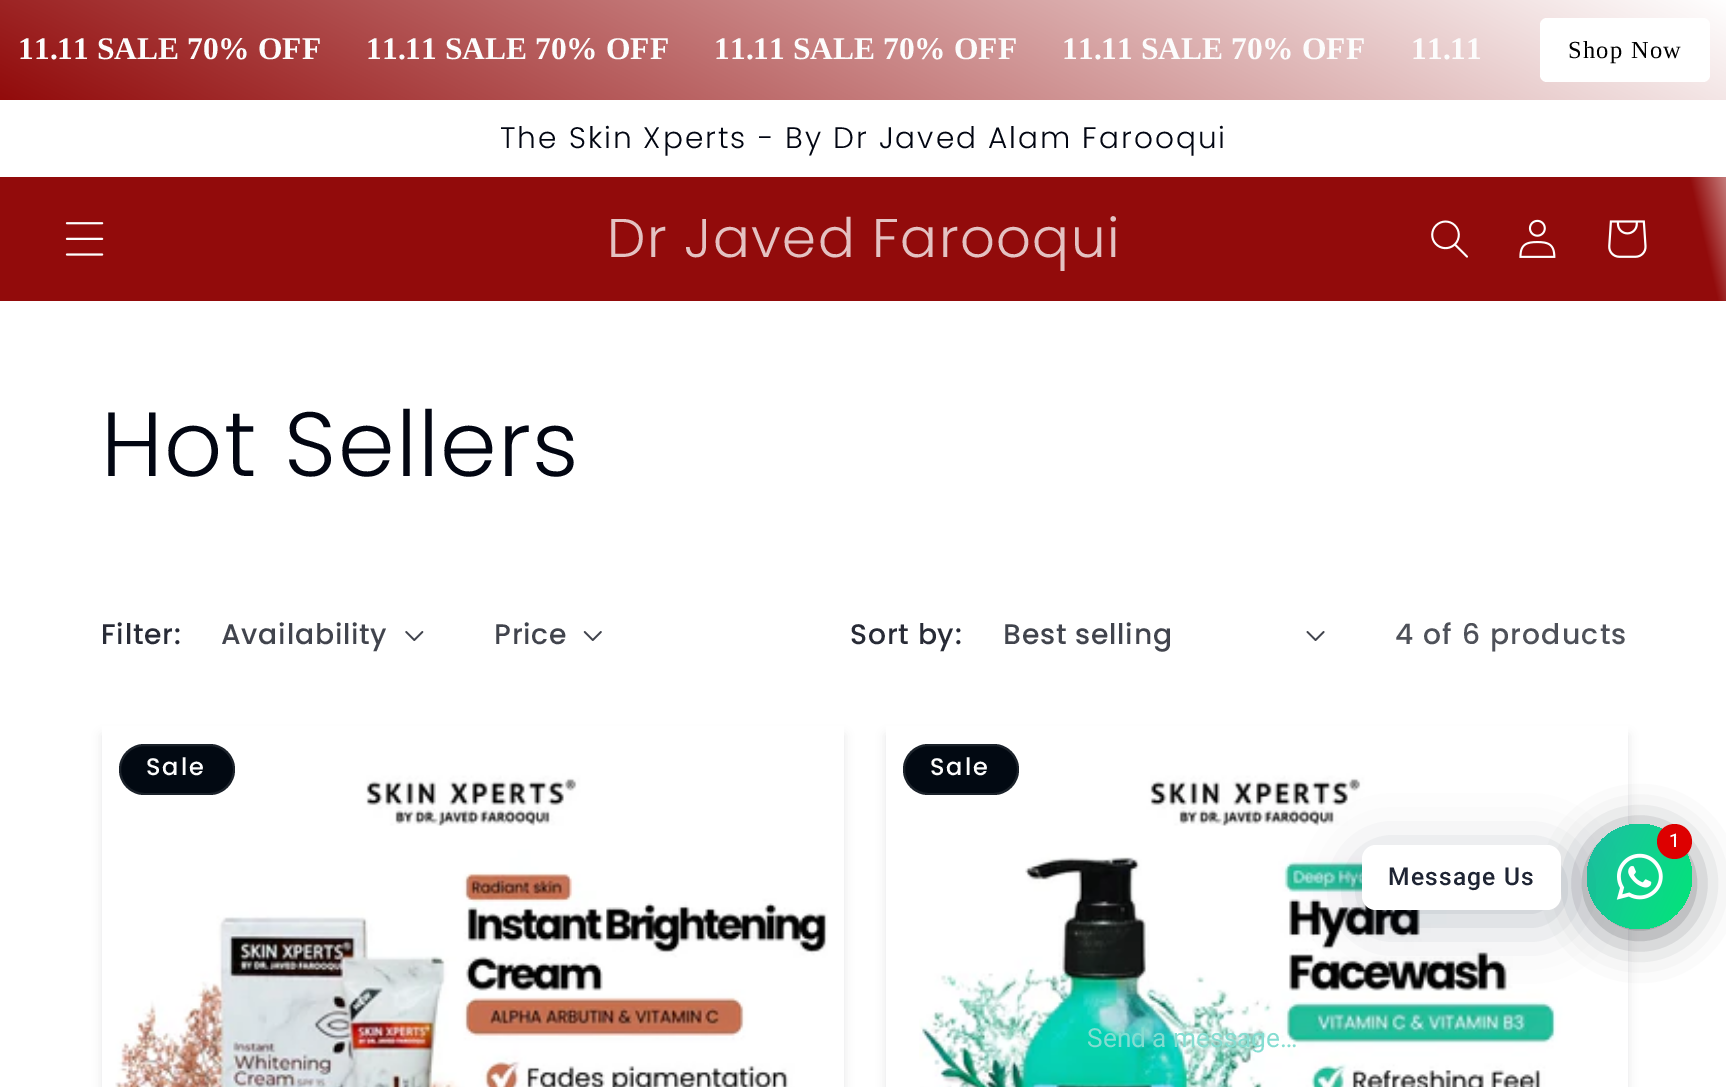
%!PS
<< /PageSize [1726 1087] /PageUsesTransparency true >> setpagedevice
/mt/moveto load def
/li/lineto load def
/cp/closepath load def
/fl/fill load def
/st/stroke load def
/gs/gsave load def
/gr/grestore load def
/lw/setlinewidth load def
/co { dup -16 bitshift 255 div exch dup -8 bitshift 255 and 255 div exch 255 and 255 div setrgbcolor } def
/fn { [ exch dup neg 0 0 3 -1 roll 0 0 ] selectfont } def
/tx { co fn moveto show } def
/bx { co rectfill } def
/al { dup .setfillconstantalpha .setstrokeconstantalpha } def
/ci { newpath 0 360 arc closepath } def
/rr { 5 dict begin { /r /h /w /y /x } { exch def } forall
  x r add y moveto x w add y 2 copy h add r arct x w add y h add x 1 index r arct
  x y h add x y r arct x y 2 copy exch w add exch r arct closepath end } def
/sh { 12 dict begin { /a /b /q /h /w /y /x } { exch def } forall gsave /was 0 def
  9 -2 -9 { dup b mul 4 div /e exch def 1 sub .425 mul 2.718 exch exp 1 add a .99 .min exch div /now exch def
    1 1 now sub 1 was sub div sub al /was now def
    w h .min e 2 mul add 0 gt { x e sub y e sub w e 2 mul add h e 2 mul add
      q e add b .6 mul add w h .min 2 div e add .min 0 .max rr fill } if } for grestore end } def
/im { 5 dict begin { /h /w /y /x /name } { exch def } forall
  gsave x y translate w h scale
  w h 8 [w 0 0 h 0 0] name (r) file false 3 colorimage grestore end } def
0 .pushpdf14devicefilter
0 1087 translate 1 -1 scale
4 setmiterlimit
0 0 1726 1087 16#FFFFFF bx
gs 0 0 mt 1726 0 li 1726 100 li 0 100 li cp clip newpath
<< /ShadingType 2 /ColorSpace /DeviceRGB /Coords [665 439 1062 -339] /Extend [true true] /Function << /FunctionType 2 /Domain [0 1] /C0 [.573 .043 .043] /C1 [1 1 1] /N 1 >> >> shfill gr
1540 18 170 64 7 rr fl
gs 0 177 mt 1726 177 li 1726 301 li 0 301 li cp clip newpath
<< /ShadingType 2 /ColorSpace /DeviceRGB /Coords [-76 761 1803 327] /Extend [true true] /Function << /FunctionType 3 /Domain [0 1] /Functions [<< /FunctionType 2 /Domain [0 1] /C0 [.573 .043 .043] /C1 [.573 .043 .043] /N 1 >> << /FunctionType 2 /Domain [0 1] /C0 [.573 .043 .043] /C1 [1 1 .992] /N 1 >>] /Bounds [.96] /Encode [0 1 0 1] >> >> shfill gr
(media/1.raw) 65 222 39 34 im
(media/2.raw) 1431 220 37 38 im
(media/3.raw) 1519 219 37 39 im
(media/4.raw) 1608 220 39 38 im
(media/5.raw) 405 631 19 10 im
(media/6.raw) 583 631 19 10 im
(media/7.raw) 1306 631 19 10 im
gs
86 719 mt 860 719 li 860 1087 li 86 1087 li cp 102 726 mt 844 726 li 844 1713 li 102 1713 li cp eoclip newpath
16#020912 co
102 735 742 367 0 5 .1 sh
gr
(media/8.raw) 115 736 729 351 im
16#020912 co
119 744 116 51 25.5 rr fl
0.1 al
16#FCFCFC co
2 lw
120 745 114 49 24.5 rr st
gs
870 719 mt 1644 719 li 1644 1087 li 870 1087 li cp 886 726 mt 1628 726 li 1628 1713 li 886 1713 li cp eoclip newpath
1 al
16#020912 co
886 735 742 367 0 5 .1 sh
gr
1 al
(media/9.raw) 919 736 709 351 im
16#020912 co
903 744 116 51 25.5 rr fl
0.1 al
16#FCFCFC co
904 745 114 49 24.5 rr st
1 al
16#020610 co
1587 831 105 105 52.5 21 .5 sh
gs 1639.5 876.5 52.5 ci clip newpath
<< /ShadingType 2 /ColorSpace /DeviceRGB /Coords [1577 847 1703 906] /Extend [true true] /Function << /FunctionType 2 /Domain [0 1] /C0 [.118 .745 .647] /C1 [.004 .902 .467] /N 1 >> >> shfill gr
16#00122E co
1362 856 199 65 14 28 .24 sh
(media/10.raw) 1616 853 47 47 im
16#DD0000 co
1674.5 841.5 17.5 ci fl
16#FFFFFF co
1362 845 199 65 14 rr fl
(11.11 SALE 70% OFF) 18 59 /LiberationSerif-Bold 31.5 16#FCFCFC tx
(11.11 SALE 70% OFF) 366 59 /LiberationSerif-Bold 31.5 16#FCFCFC tx
(11.11 SALE 70% OFF) 714 59 /LiberationSerif-Bold 31.5 16#FCFCFC tx
(11.11 SALE 70% OFF) 1062 59 /LiberationSerif-Bold 31.5 16#FCFCFC tx
(11.11) 1411 59 /LiberationSerif-Bold 31.5 16#FCFCFC tx
/LiberationSerif-Regular 24.5 fn
16#000000 co
1568 58 mt 1.25 0 (Shop Now) ashow
/Poppins-Light 29.6 fn
16#020612 co
500 148 mt 2 0 (The Skin Xperts - By Dr Javed Alam Farooqui) ashow
/Poppins-Light 54.5 fn
16#E4C2C2 co
607 257 mt 1.4 0 (Dr Javed Farooqui) ashow
/Poppins-Light 91 fn
16#020612 co
101 476 mt 1.4 0 (Hot Sellers) ashow
/Poppins-Medium 28.25 fn
16#282B36 co
101 644 mt .75 0 (Filter:) ashow
16#41444D co
221 644 mt .75 0 (Availability) ashow
494 644 mt .75 0 (Price) ashow
16#282B36 co
850 644 mt .75 0 (Sort by:) ashow
16#41444D co
1003 644 mt .75 0 (Best selling) ashow
16#4E5159 co
1395 644 mt 1.25 0 (4 of 6 products) ashow
/Poppins-Medium 24 fn
16#FCFCFC co
146 775 mt 2 0 (Sale) ashow
930 775 mt 2 0 (Sale) ashow
/Roboto-Medium 19 fn
1669 847 mt 1.25 0 (1) ashow
/Roboto-Medium 24.5 fn
16#1E2433 co
1388 885 mt 1.25 0 (Message Us) ashow
(Send a message…) 1087 1047 /Roboto-Regular 26.25 16#84DDD1 tx
.poppdf14devicefilter showpage
